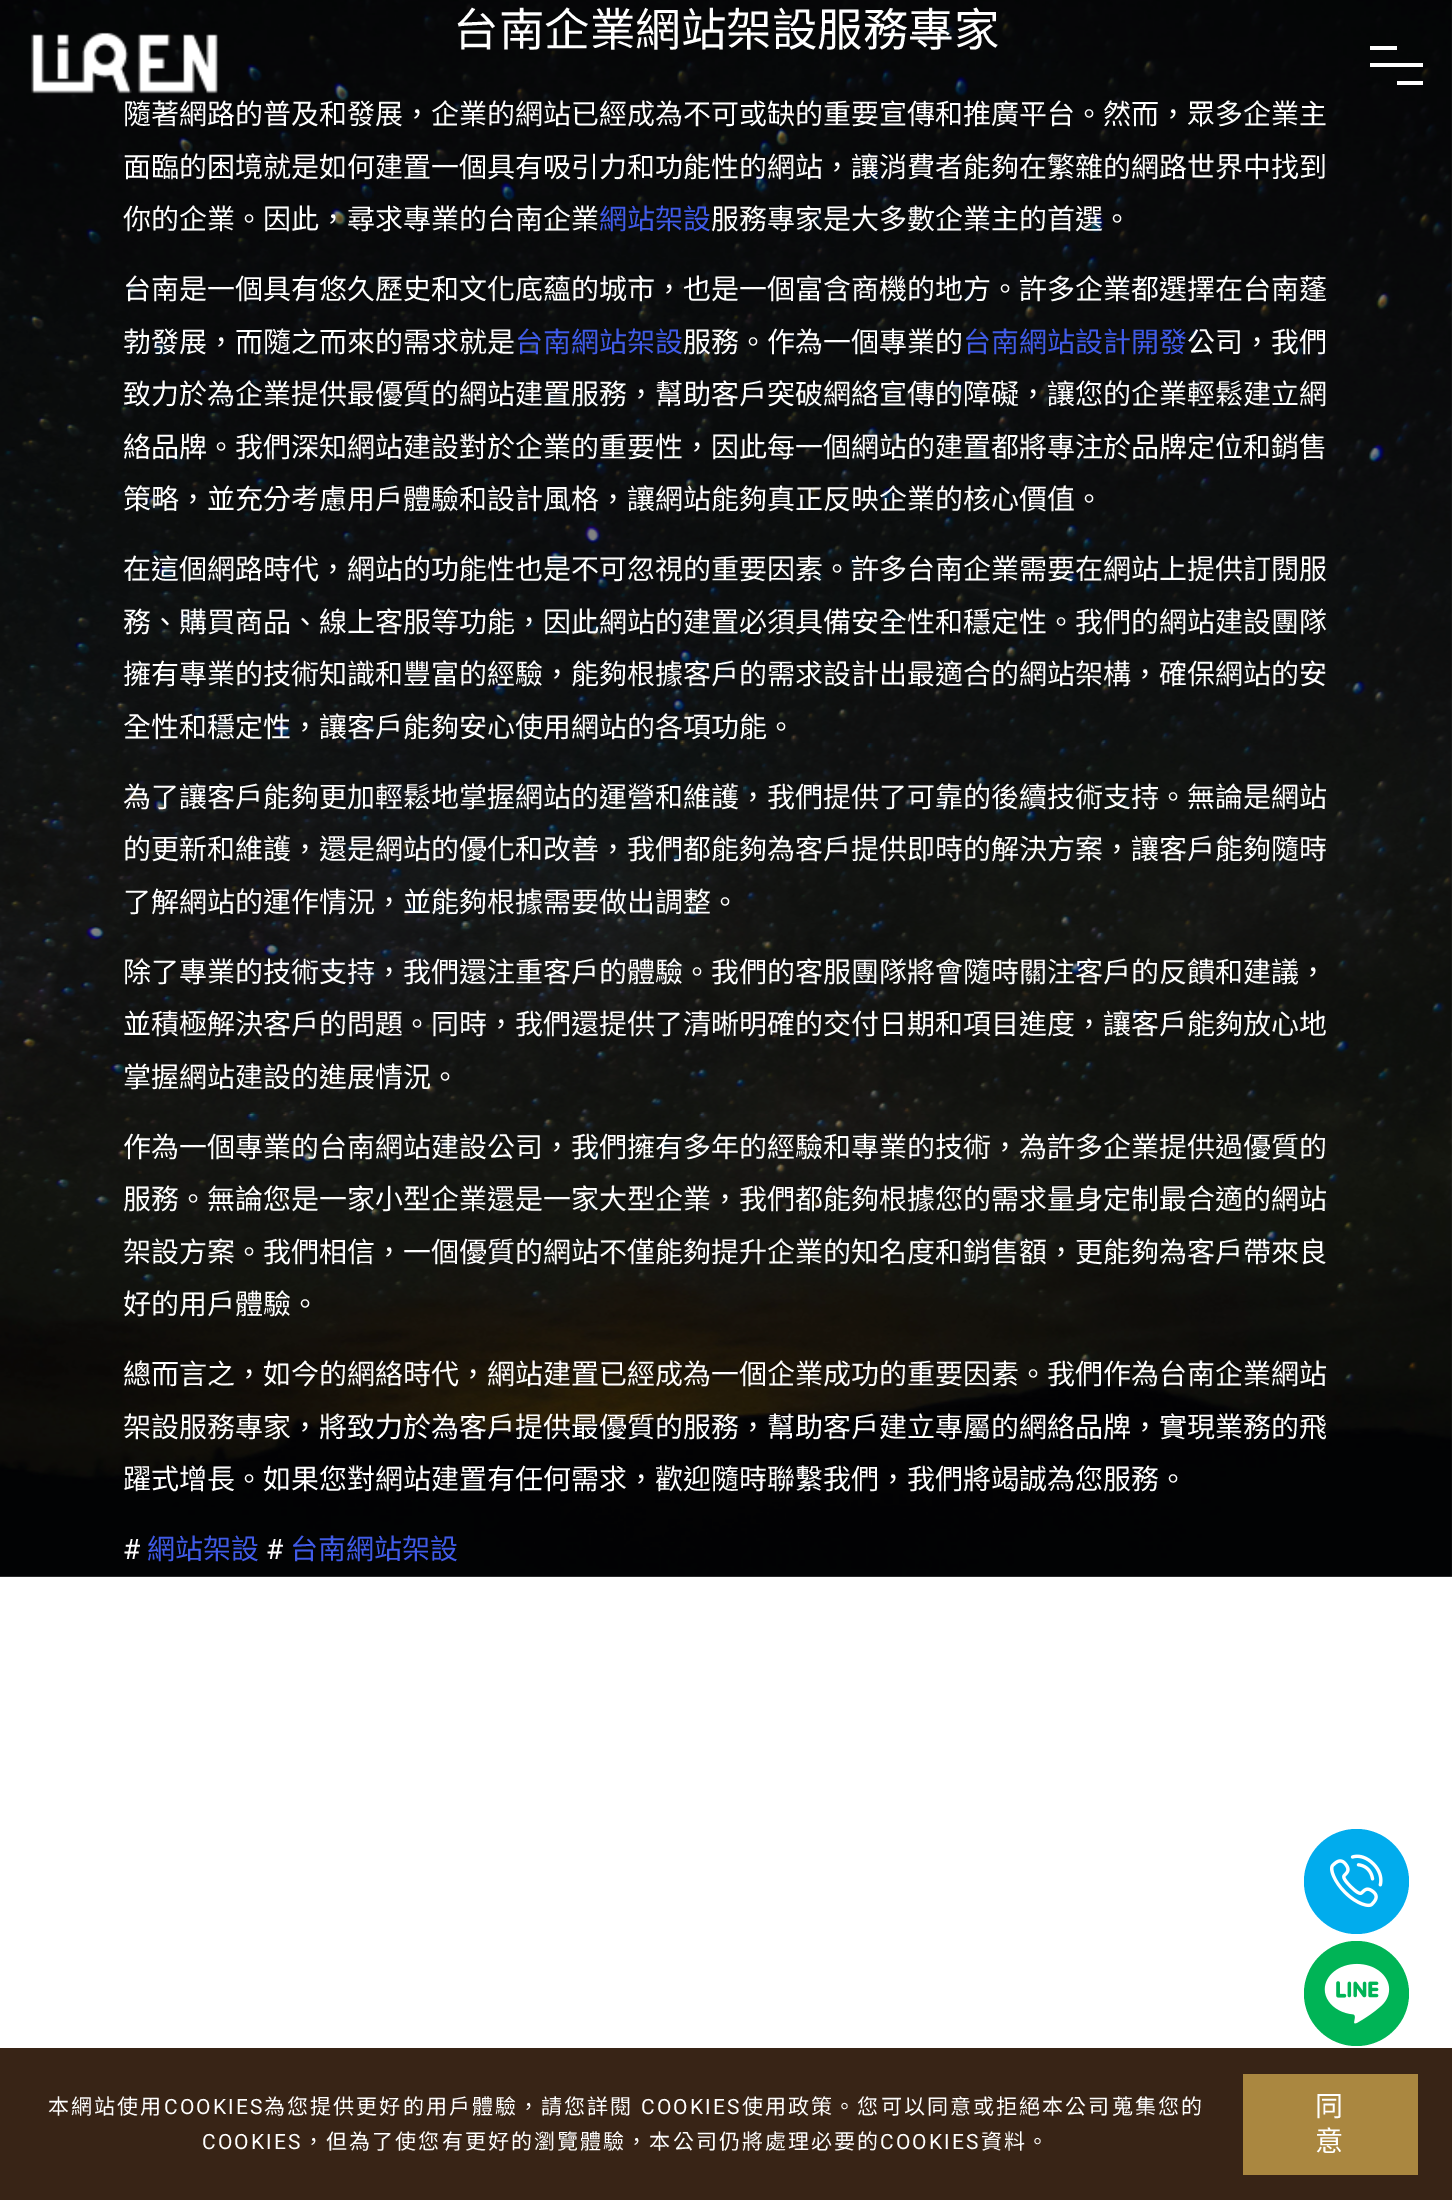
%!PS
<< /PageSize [1452 2200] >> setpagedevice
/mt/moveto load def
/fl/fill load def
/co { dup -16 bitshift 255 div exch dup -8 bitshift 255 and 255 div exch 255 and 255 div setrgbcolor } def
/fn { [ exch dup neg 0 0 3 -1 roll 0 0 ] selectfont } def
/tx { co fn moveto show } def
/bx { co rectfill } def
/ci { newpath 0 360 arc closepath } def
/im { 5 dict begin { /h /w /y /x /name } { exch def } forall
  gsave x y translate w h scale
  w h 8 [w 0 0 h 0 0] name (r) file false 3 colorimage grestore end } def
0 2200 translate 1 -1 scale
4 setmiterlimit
0 0 1452 2200 16#FFFFFF bx
0 0 1452 1577 16#818283 bx
(media/1.raw) 0 0 1452 1577 im
(media/2.raw) 31 32 187 62 im
1370 63 53 4 16#FFFFFF bx
1370 46 27 4 16#FFFFFF bx
1397 81 26 4 16#FFFFFF bx
16#01ACED co
1356.5 1881.5 52.5 ci fl
(media/3.raw) 1330 1854 53 54 im
16#00B456 co
1356.5 1993.5 52.5 ci fl
(media/4.raw) 1324 1963 66 61 im
0 2048 1452 152 16#382416 bx
1243 2074 175 101 16#AA8740 bx
(台南企業網站架設服務專家) 453 46 /NotoSansCJKTC-Regular 45.5 16#FFFFFF tx
(隨著網路的普及和發展，企業的網站已經成為不可或缺的重要宣傳和推廣平台。然而，眾多企業主) 123 124 /NotoSansCJKTC-Regular 28 16#FFFFFF tx
(面臨的困境就是如何建置一個具有吸引力和功能性的網站，讓消費者能夠在繁雜的網路世界中找到) 123 177 /NotoSansCJKTC-Regular 28 16#FFFFFF tx
(你的企業。因此，尋求專業的台南企業) 123 229 /NotoSansCJKTC-Regular 28 16#FFFFFF tx
(網站架設) 599 229 /NotoSansCJKTC-Regular 28 16#405BE8 tx
(服務專家是大多數企業主的首選。) 711 229 /NotoSansCJKTC-Regular 28 16#FFFFFF tx
(台南是一個具有悠久歷史和文化底蘊的城市，也是一個富含商機的地方。許多企業都選擇在台南蓬) 123 299 /NotoSansCJKTC-Regular 28 16#FFFFFF tx
(勃發展，而隨之而來的需求就是) 123 352 /NotoSansCJKTC-Regular 28 16#FFFFFF tx
(台南網站架設) 515 352 /NotoSansCJKTC-Regular 28 16#405BE8 tx
(服務。作為一個專業的) 683 352 /NotoSansCJKTC-Regular 28 16#FFFFFF tx
(台南網站設計開發) 963 352 /NotoSansCJKTC-Regular 28 16#405BE8 tx
(公司，我們) 1187 352 /NotoSansCJKTC-Regular 28 16#FFFFFF tx
(致力於為企業提供最優質的網站建置服務，幫助客戶突破網絡宣傳的障礙，讓您的企業輕鬆建立網) 123 404 /NotoSansCJKTC-Regular 28 16#FFFFFF tx
(絡品牌。我們深知網站建設對於企業的重要性，因此每一個網站的建置都將專注於品牌定位和銷售) 123 457 /NotoSansCJKTC-Regular 28 16#FFFFFF tx
(策略，並充分考慮用戶體驗和設計風格，讓網站能夠真正反映企業的核心價值。) 123 509 /NotoSansCJKTC-Regular 28 16#FFFFFF tx
(在這個網路時代，網站的功能性也是不可忽視的重要因素。許多台南企業需要在網站上提供訂閱服) 123 579 /NotoSansCJKTC-Regular 28 16#FFFFFF tx
(務、購買商品、線上客服等功能，因此網站的建置必須具備安全性和穩定性。我們的網站建設團隊) 123 632 /NotoSansCJKTC-Regular 28 16#FFFFFF tx
(擁有專業的技術知識和豐富的經驗，能夠根據客戶的需求設計出最適合的網站架構，確保網站的安) 123 684 /NotoSansCJKTC-Regular 28 16#FFFFFF tx
(全性和穩定性，讓客戶能夠安心使用網站的各項功能。) 123 737 /NotoSansCJKTC-Regular 28 16#FFFFFF tx
(為了讓客戶能夠更加輕鬆地掌握網站的運營和維護，我們提供了可靠的後續技術支持。無論是網站) 123 807 /NotoSansCJKTC-Regular 28 16#FFFFFF tx
(的更新和維護，還是網站的優化和改善，我們都能夠為客戶提供即時的解決方案，讓客戶能夠隨時) 123 859 /NotoSansCJKTC-Regular 28 16#FFFFFF tx
(了解網站的運作情況，並能夠根據需要做出調整。) 123 912 /NotoSansCJKTC-Regular 28 16#FFFFFF tx
(除了專業的技術支持，我們還注重客戶的體驗。我們的客服團隊將會隨時關注客戶的反饋和建議，) 123 982 /NotoSansCJKTC-Regular 28 16#FFFFFF tx
(並積極解決客戶的問題。同時，我們還提供了清晰明確的交付日期和項目進度，讓客戶能夠放心地) 123 1034 /NotoSansCJKTC-Regular 28 16#FFFFFF tx
(掌握網站建設的進展情況。) 123 1087 /NotoSansCJKTC-Regular 28 16#FFFFFF tx
(作為一個專業的台南網站建設公司，我們擁有多年的經驗和專業的技術，為許多企業提供過優質的) 123 1157 /NotoSansCJKTC-Regular 28 16#FFFFFF tx
(服務。無論您是一家小型企業還是一家大型企業，我們都能夠根據您的需求量身定制最合適的網站) 123 1209 /NotoSansCJKTC-Regular 28 16#FFFFFF tx
(架設方案。我們相信，一個優質的網站不僅能夠提升企業的知名度和銷售額，更能夠為客戶帶來良) 123 1262 /NotoSansCJKTC-Regular 28 16#FFFFFF tx
(好的用戶體驗。) 123 1314 /NotoSansCJKTC-Regular 28 16#FFFFFF tx
(總而言之，如今的網絡時代，網站建置已經成為一個企業成功的重要因素。我們作為台南企業網站) 123 1384 /NotoSansCJKTC-Regular 28 16#FFFFFF tx
(架設服務專家，將致力於為客戶提供最優質的服務，幫助客戶建立專屬的網絡品牌，實現業務的飛) 123 1437 /NotoSansCJKTC-Regular 28 16#FFFFFF tx
(躍式增長。如果您對網站建置有任何需求，歡迎隨時聯繫我們，我們將竭誠為您服務。) 123 1489 /NotoSansCJKTC-Regular 28 16#FFFFFF tx
(#) 123 1559 /Roboto-Regular 28 16#FFFFFF tx
(網站架設) 147 1559 /NotoSansCJKTC-Regular 28 16#405BE8 tx
(#) 266 1559 /Roboto-Regular 28 16#FFFFFF tx
(台南網站架設) 290 1559 /NotoSansCJKTC-Regular 28 16#405BE8 tx
/NotoSansCJKTC-Regular 21 fn
16#FFFFFF co
48 2114 mt 2.1 0 (本網站使用) ashow
/Roboto-Regular 21 fn
164 2114 mt 2.1 0 (COOKIES) ashow
/NotoSansCJKTC-Regular 21 fn
264 2114 mt 2.1 0 (為您提供更好的用戶體驗，請您詳閱) ashow
/Roboto-Regular 21 fn
641 2114 mt 2.1 0 (COOKIES) ashow
/NotoSansCJKTC-Regular 21 fn
742 2114 mt 2.1 0 (使用政策。您可以同意或拒絕本公司蒐集您的) ashow
/Roboto-Regular 21 fn
202 2149 mt 2.1 0 (COOKIES) ashow
/NotoSansCJKTC-Regular 21 fn
303 2149 mt 2.1 0 (，但為了使您有更好的瀏覽體驗，本公司仍將處理必要的) ashow
/Roboto-Regular 21 fn
880 2149 mt 2.1 0 (COOKIES) ashow
/NotoSansCJKTC-Regular 21 fn
981 2149 mt 2.1 0 (資料。) ashow
/NotoSansCJKTC-Regular 28 fn
1315 2116 mt 3 0 (同) ashow
1315 2151 mt 3 0 (意) ashow
showpage
